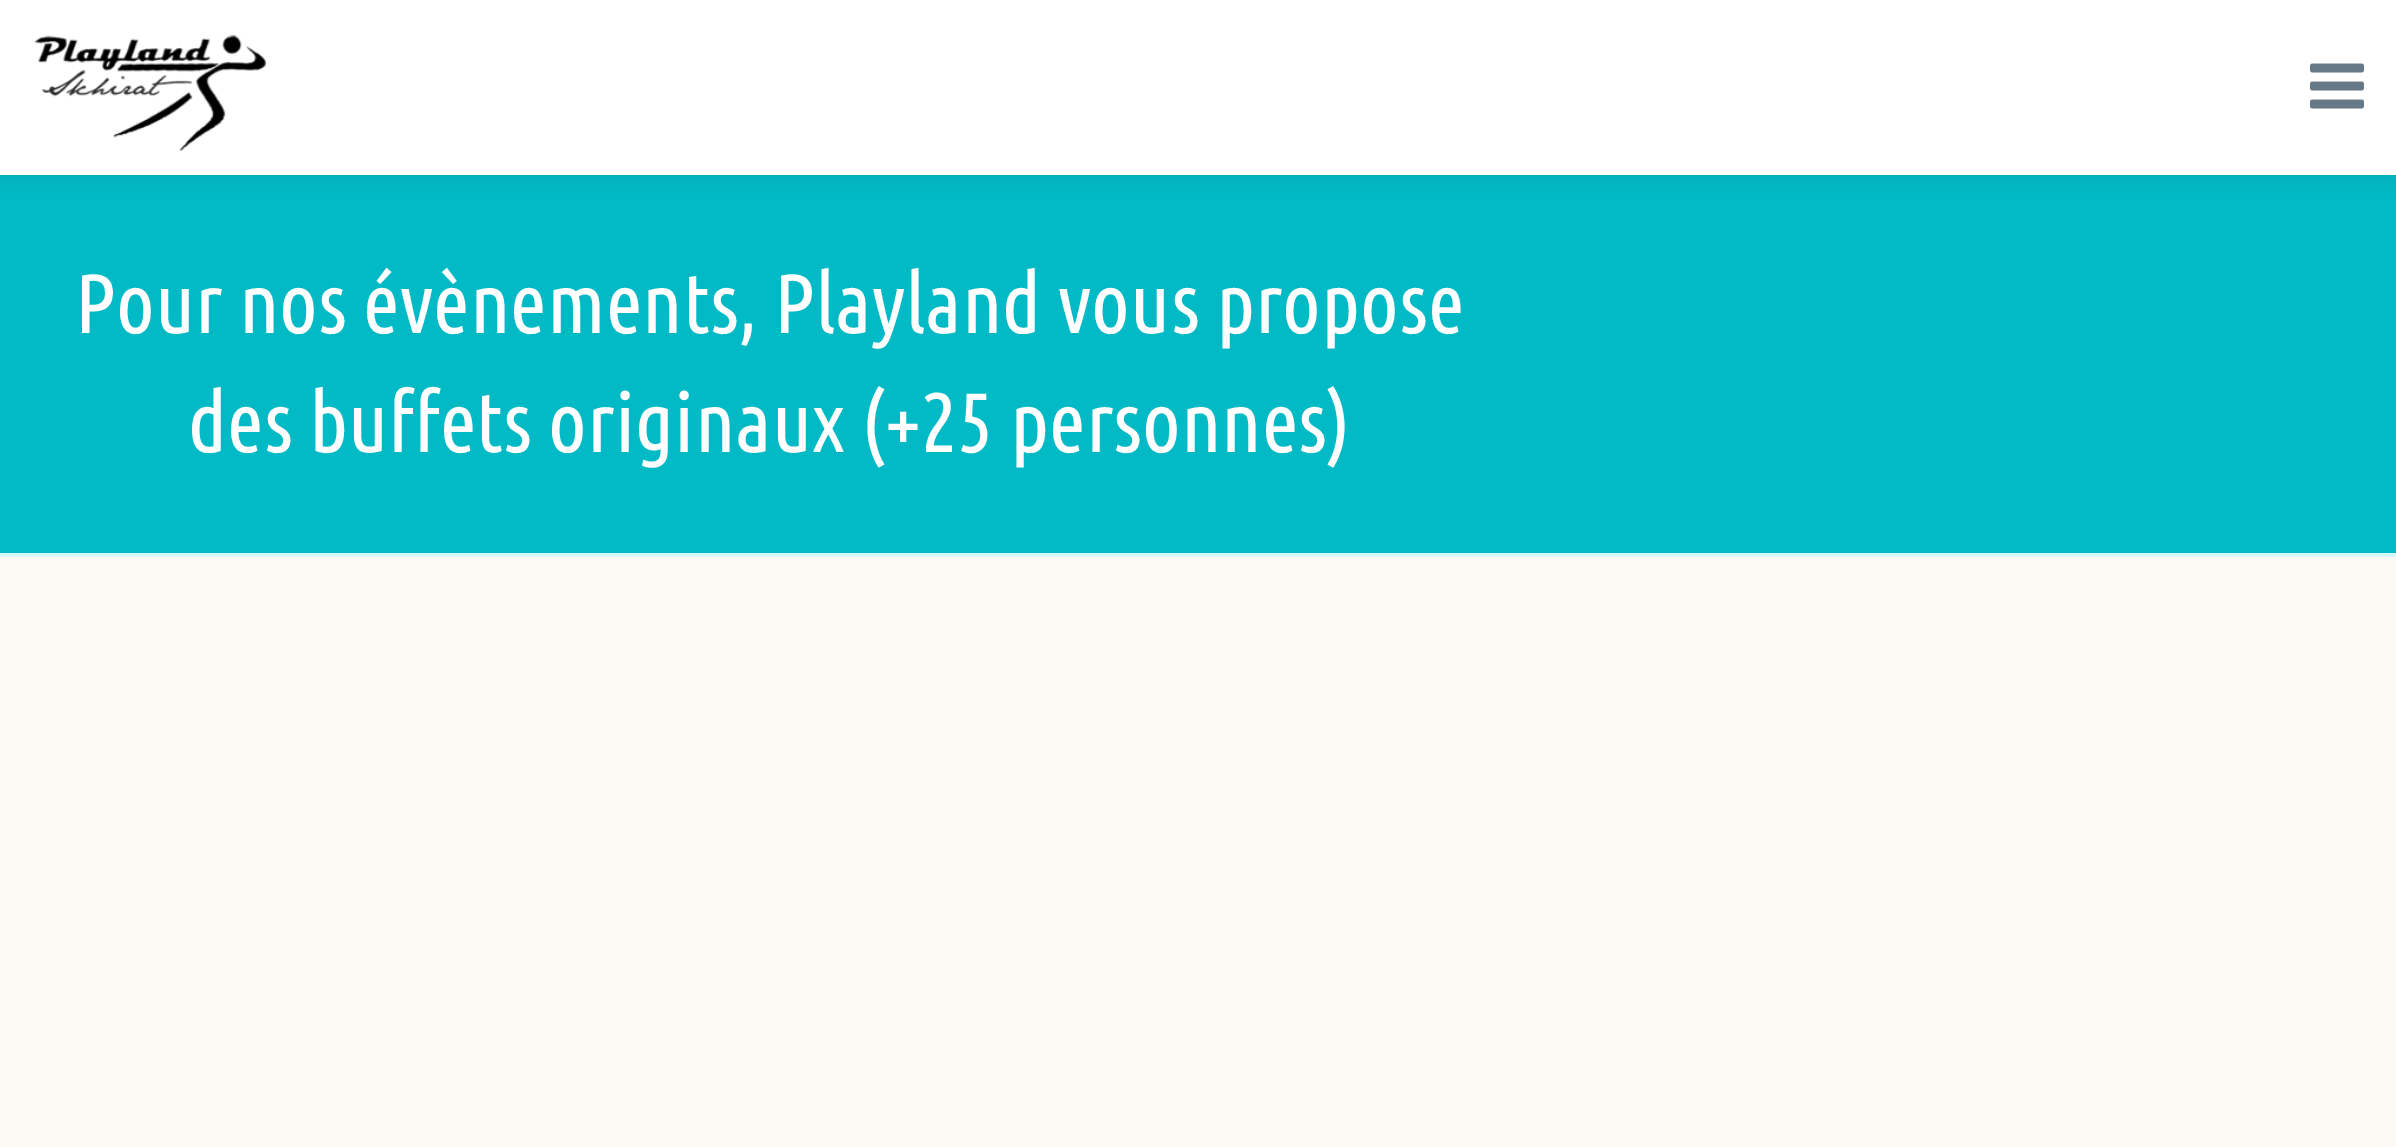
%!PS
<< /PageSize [2396 1147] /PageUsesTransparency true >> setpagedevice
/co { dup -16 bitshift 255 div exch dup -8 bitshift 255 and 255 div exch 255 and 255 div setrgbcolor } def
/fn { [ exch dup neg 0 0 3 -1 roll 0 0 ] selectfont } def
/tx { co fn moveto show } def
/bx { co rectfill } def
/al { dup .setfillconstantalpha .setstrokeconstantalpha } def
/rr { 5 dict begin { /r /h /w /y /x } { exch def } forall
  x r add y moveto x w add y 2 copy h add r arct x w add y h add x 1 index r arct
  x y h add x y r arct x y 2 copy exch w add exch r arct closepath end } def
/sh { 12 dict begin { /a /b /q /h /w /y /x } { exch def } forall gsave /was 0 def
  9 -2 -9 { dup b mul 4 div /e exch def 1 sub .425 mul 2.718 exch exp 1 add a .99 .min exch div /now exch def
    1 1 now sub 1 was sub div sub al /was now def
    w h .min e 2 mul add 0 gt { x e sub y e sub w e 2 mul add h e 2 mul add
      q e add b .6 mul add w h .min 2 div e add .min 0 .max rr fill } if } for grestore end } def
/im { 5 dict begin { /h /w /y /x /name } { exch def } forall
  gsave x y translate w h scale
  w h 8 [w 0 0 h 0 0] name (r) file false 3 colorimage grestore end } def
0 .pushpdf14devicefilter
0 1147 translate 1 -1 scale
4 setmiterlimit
0 0 2396 1147 16#FCF9F4 bx
0 175 2396 378 16#02BAC6 bx
16#000000 co
0 7 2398 175 0 10.5 .05 sh
0 0 2396 175 16#FFFFFF bx
(media/1.raw) 35 35 231 116 im
(media/2.raw) 2310 63 54 46 im
0 553 2396 4 16#D6FCFF bx
(Pour nos évènements, Playland vous propose) 75 333 /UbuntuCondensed-Regular 84 16#FFFFFF tx
(des buffets originaux \(+25 personnes\)) 188 452 /UbuntuCondensed-Regular 84 16#FFFFFF tx
.poppdf14devicefilter showpage
